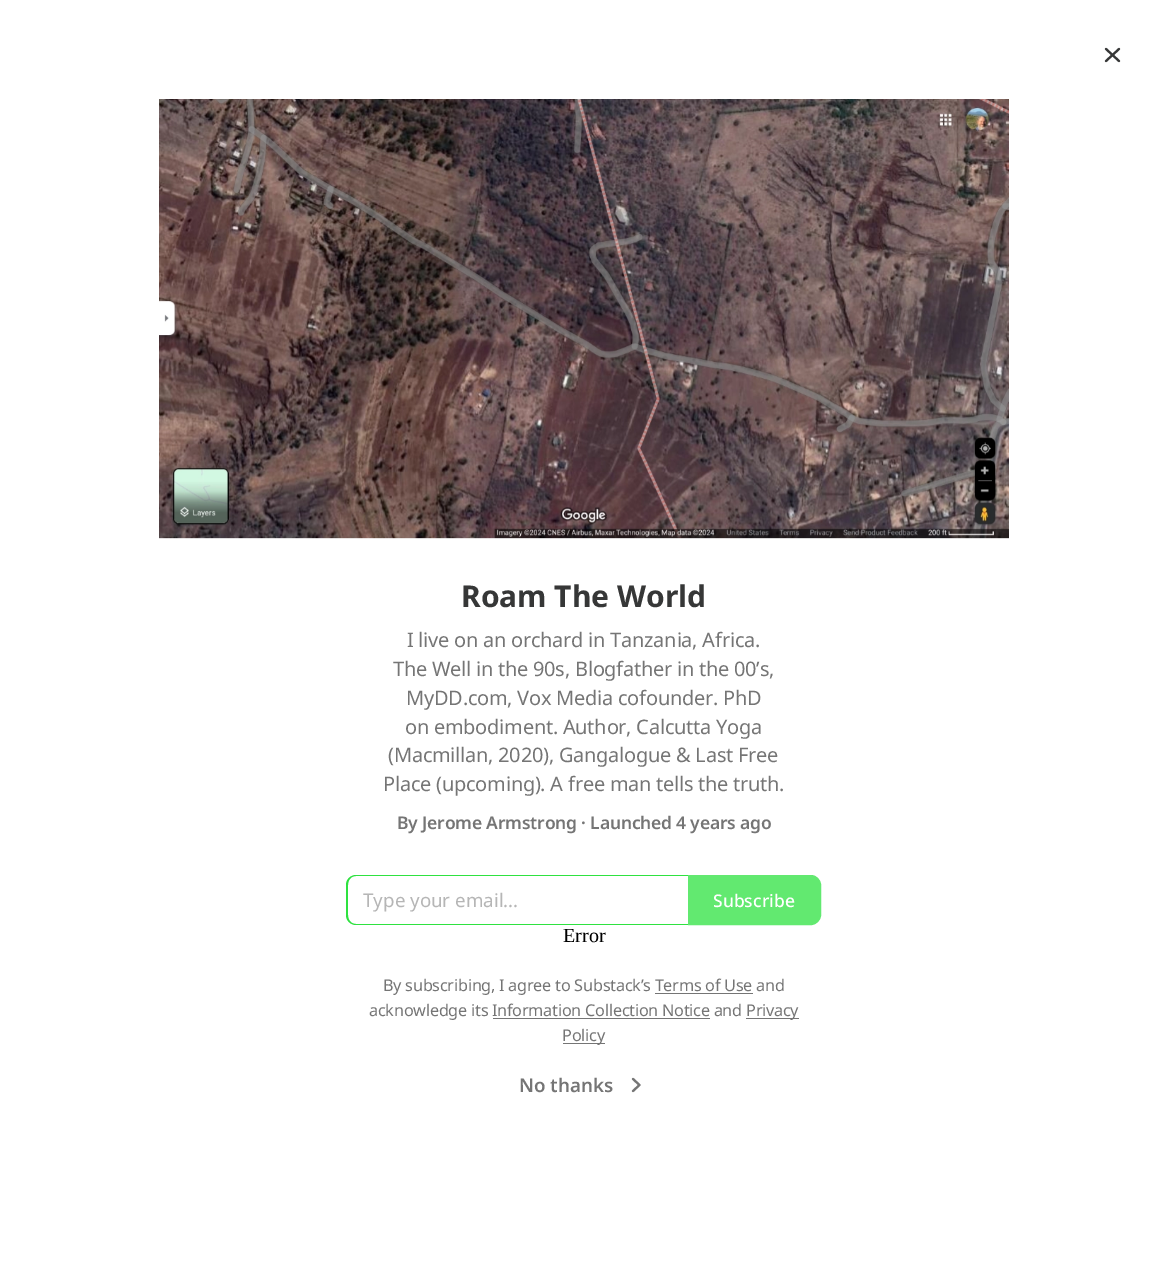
%!PS
<< /PageSize [1167 1272] >> setpagedevice
/mt/moveto load def
/li/lineto load def
/ct/curveto load def
/cp/closepath load def
/fl/fill load def
/st/stroke load def
/gs/gsave load def
/gr/grestore load def
/lw/setlinewidth load def
/co { dup -16 bitshift 255 div exch dup -8 bitshift 255 and 255 div exch 255 and 255 div setrgbcolor } def
/fn { [ exch dup neg 0 0 3 -1 roll 0 0 ] selectfont } def
/tx { co fn moveto show } def
/bx { co rectfill } def
/im { 5 dict begin { /h /w /y /x /name } { exch def } forall
  gsave x y translate w h scale
  w h 8 [w 0 0 h 0 0] name (r) file false 3 colorimage grestore end } def
0 1272 translate 1 -1 scale
4 setmiterlimit
0 0 1167 1272 16#FFFFFF bx
16#363737 co
2.1 lw
1 setlinecap
1 setlinejoin
1119 49 mt 1106 61 li 1106 49 mt 1119 61 li st
(media/1.raw) 159 99 850 440 im
16#2EE240 co
356 875 mt 688 875 li 688 925 li 356 925 li 351 925 346 921 346 915 ct 346 885 li 346 879 351 875 356 875 ct cp 356 876 mt 688 876 li 688 924 li 356 924 li 351 924 348 920 348 915 ct 348 885 li 348 880 351 876 356 876 ct cp eofill
16#62E970 co
688.5 875.5 mt 811 875.5 li 816 875.5 820.5 880 820.5 885 ct 820.5 915 li 820.5 920 816 924.5 811 924.5 ct 688.5 924.5 li cp gs fl gr
1 lw
0 setlinecap
0 setlinejoin
st
655 993 98 1 16#757575 bx
746 1018 53 1 16#757575 bx
493 1018 217 1 16#757575 bx
563 1043 42 1 16#757575 bx
2.1 lw
1 setlinecap
1 setlinejoin
633 1091 mt 639.5 1085 li 633 1079 li st
(Roam The World) 461 607 /NotoSans-Bold 30 16#363737 tx
/NotoSans-Regular 20 fn
16#757575 co
407 647 mt -.25 0 (I live on an orchard in Tanzania, Africa.) ashow
393 676 mt -.25 0 (The Well in the 90s, Blogfather in the 00’s,) ashow
406 705 mt -.25 0 (MyDD.com, Vox Media cofounder. PhD) ashow
405 734 mt -.25 0 (on embodiment. Author, Calcutta Yoga) ashow
388 762 mt -.25 0 (\(Macmillan, 2020\), Gangalogue & Last Free) ashow
383 791 mt -.25 0 (Place \(upcoming\). A free man tells the truth.) ashow
/NotoSans-SemiBold 17.5 fn
397 829 mt -.2 0 (By Jerome Armstrong · Launched 4 years ago) ashow
(Type your email...) 363 907 /NotoSans-Regular 18.75 16#B6B6B6 tx
(Subscribe) 713 907 /NotoSans-Medium 17.5 16#FFFFFF tx
(Error) 563 942 /LiberationSerif-Regular 20 16#000000 tx
/NotoSans-Regular 16.25 fn
16#757575 co
383 991 mt -.25 0 (By subscribing, I agree to Substack’s Terms of Use and) ashow
369 1016 mt -.25 0 (acknowledge its Information Collection Notice and) ashow
746 1016 mt -.25 0 (Privacy) ashow
562 1041 mt -.25 0 (Policy) ashow
(No thanks) 519 1092 /NotoSans-SemiBold 18.75 16#757575 tx
showpage
